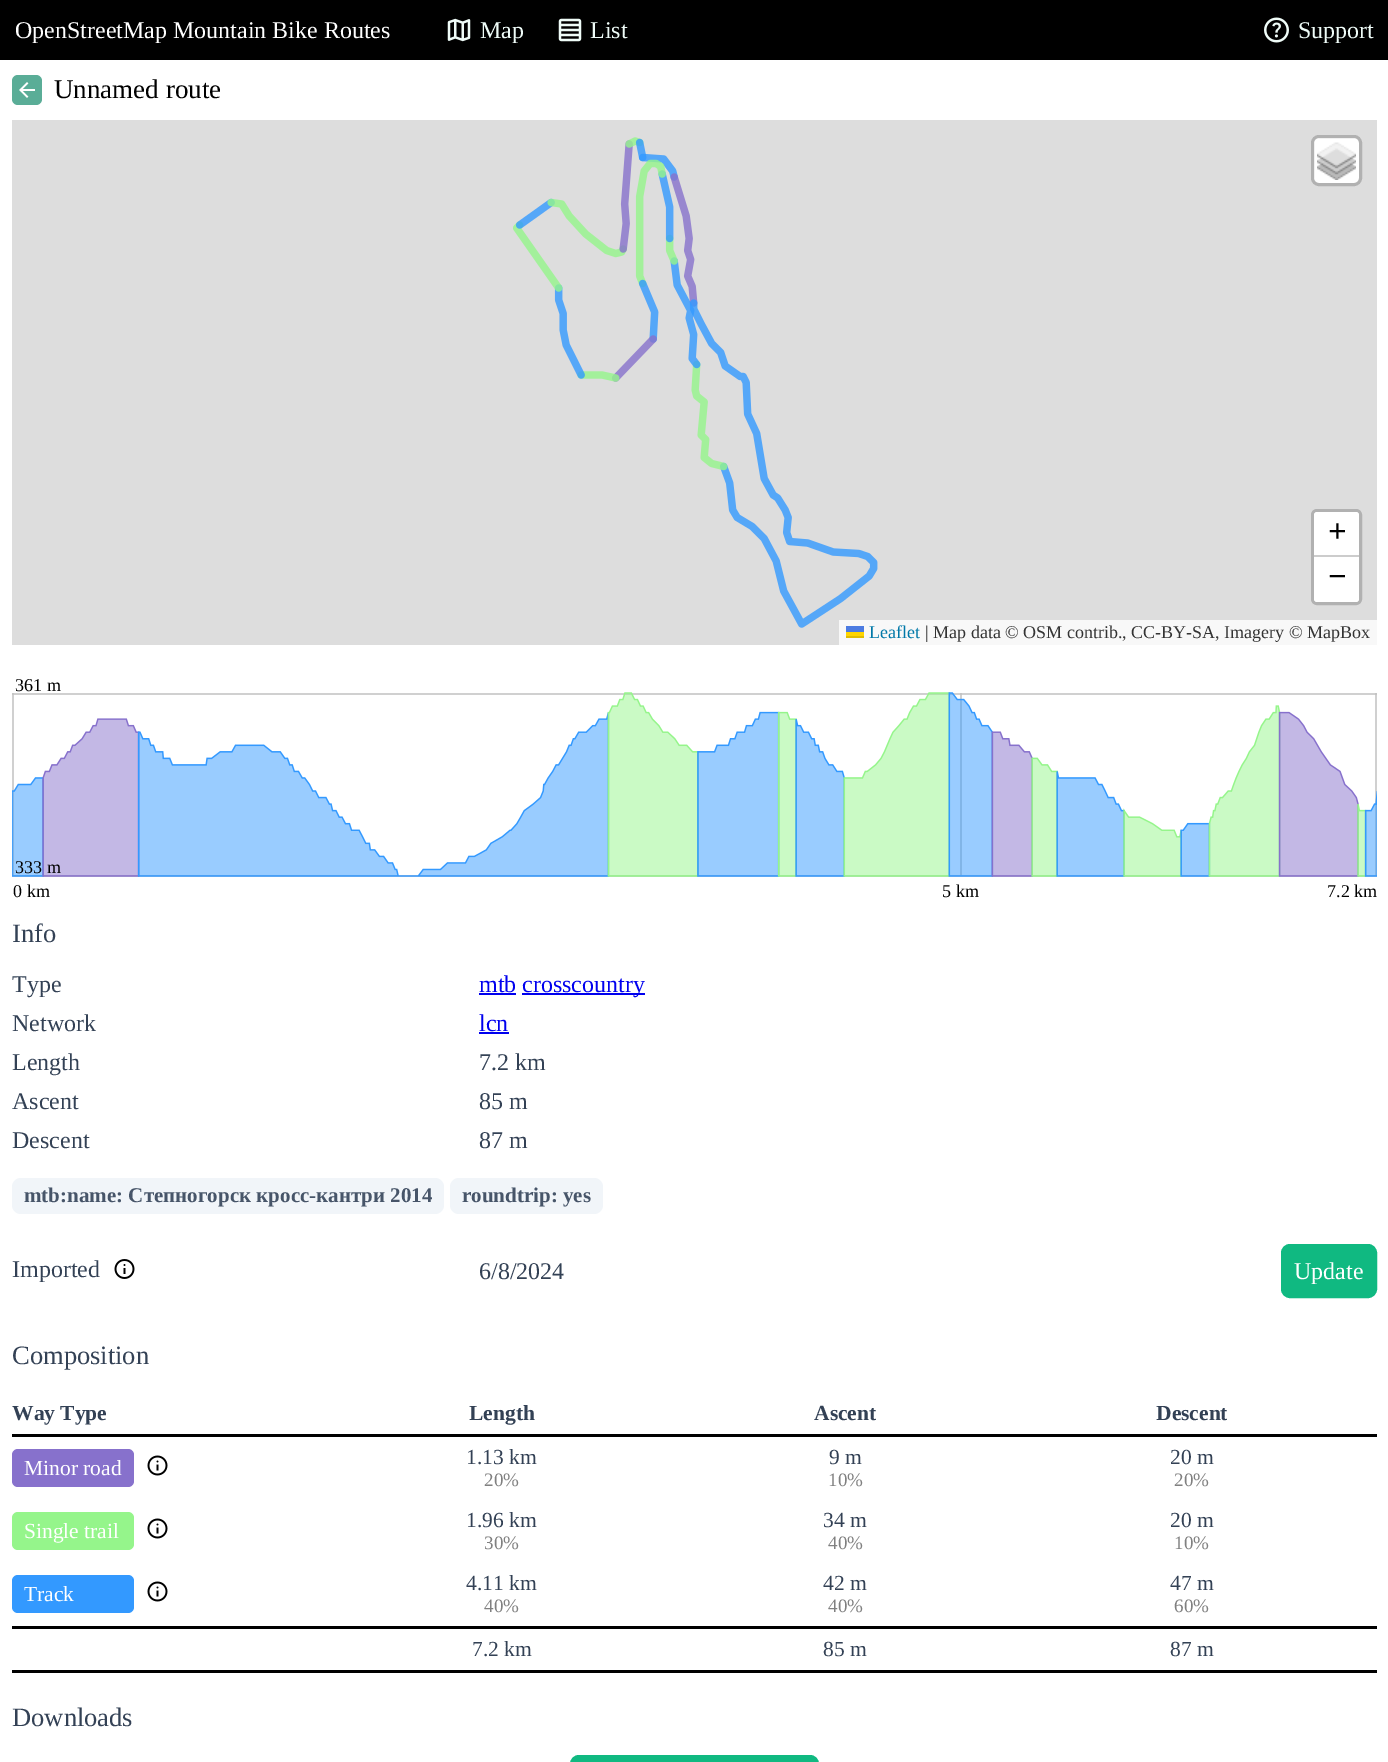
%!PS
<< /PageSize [1388 1762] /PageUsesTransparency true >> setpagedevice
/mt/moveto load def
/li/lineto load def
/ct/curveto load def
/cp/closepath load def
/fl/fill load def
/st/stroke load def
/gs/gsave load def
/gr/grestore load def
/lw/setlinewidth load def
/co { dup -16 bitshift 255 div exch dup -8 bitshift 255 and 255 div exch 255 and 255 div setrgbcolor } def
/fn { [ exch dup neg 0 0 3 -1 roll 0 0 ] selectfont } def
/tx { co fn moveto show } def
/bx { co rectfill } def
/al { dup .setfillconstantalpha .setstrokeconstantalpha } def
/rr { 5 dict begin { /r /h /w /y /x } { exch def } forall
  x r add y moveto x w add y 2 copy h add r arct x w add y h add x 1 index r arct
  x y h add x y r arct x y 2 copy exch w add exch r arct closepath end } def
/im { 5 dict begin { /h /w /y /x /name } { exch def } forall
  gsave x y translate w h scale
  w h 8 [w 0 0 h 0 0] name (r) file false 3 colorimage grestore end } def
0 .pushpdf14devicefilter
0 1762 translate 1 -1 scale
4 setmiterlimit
0 0 1388 1762 16#FFFFFF bx
0 0 1388 60 16#000000 bx
(media/1.raw) 447 18 24 24 im
(media/2.raw) 558 18 24 24 im
(media/3.raw) 1264 17 25 26 im
16#5AAD97 co
12 75 30 30 6 rr fl
(media/4.raw) 19 82 16 16 im
12 120 1365 525 16#DDDDDD bx
(media/5.raw) 513 137 365 491 im
16#FFFFFF co
1314 138 45 45 5 rr fl
0.2 al
16#000000 co
3 lw
1312.5 136.5 48 48 6.5 rr st
1 al
(media/6.raw) 1317 142 39 38 im
16#B1B1B1 co
1312.5 510.5 48 93 4.5 rr st
16#FFFFFF co
1317 512 mt 1356 512 li 1357.5 512 1359 513.5 1359 515 ct 1359 557 li 1314 557 li 1314 515 li 1314 513.5 1315.5 512 1317 512 ct cp fl
1314 555 45 2 16#CCCCCC bx
16#FFFFFF co
1314 557 mt 1359 557 li 1359 599 li 1359 600.5 1357.5 602 1356 602 ct 1317 602 li 1315.5 602 1314 600.5 1314 599 ct cp fl
839 620 538 25 16#F8F8F8 bx
846 626 18 6 16#4C7BE1 bx
846 632 18 4 16#FFD500 bx
846 636 18 2 16#E0BC00 bx
(media/7.raw) 12 692 1365 185 im
479 993 37 2 16#0000EE bx
522 993 123 2 16#0000EE bx
479 1032 30 2 16#0000EE bx
16#F1F5F9 co
12 1178 432 36 9 rr fl
450 1178 153 36 9 rr fl
(media/8.raw) 114 1259 21 20 im
16#10B981 co
1282 1245 94 52 8 rr gs fl gr
2 lw
st
12 1434 1365 3 16#000000 bx
16#8771CC co
12 1449 122 38 6 rr fl
(media/9.raw) 147 1455 21 21 im
16#95F58B co
12 1512 122 38 6 rr fl
(media/9.raw) 147 1518 21 21 im
16#3399FF co
12 1575 122 38 6 rr fl
(media/9.raw) 147 1581 21 21 im
12 1626 1365 3 16#000000 bx
12 1670 1365 3 16#000000 bx
16#10B981 co
571 1756 247 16 8 rr gs fl gr
st
(OpenStreetMap Mountain Bike Routes) 15 38 /LiberationSerif-Regular 24 16#FFFFFF tx
(Map) 480 38 /LiberationSerif-Regular 24 16#EFFCF8 tx
(List) 590 38 /LiberationSerif-Regular 24 16#EFFCF8 tx
(Support) 1298 38 /LiberationSerif-Regular 24 16#EFFCF8 tx
(Unnamed route) 54 98 /LiberationSerif-Regular 27 16#000000 tx
(+) 1328 542 /LiberationSerif-Bold 33 16#000000 tx
(−) 1328 587 /LiberationSerif-Bold 33 16#000000 tx
(Leaflet) 869 638 /LiberationSerif-Regular 18 16#0078A8 tx
(| Map data © OSM contrib., CC-BY-SA, Imagery © MapBox) 925 638 /LiberationSerif-Regular 18 16#333333 tx
(361 m) 15 691 /LiberationSerif-Regular 18 16#000000 tx
(333 m) 15 873 /LiberationSerif-Regular 18 16#000000 tx
(0 km) 13 897 /LiberationSerif-Regular 18 16#000000 tx
(5 km) 942 897 /LiberationSerif-Regular 18 16#000000 tx
(7.2 km) 1327 897 /LiberationSerif-Regular 18 16#000000 tx
(Info) 12 942 /LiberationSerif-Regular 26.5 16#334155 tx
(Type) 12 992 /LiberationSerif-Regular 24 16#334155 tx
(mtb) 479 992 /LiberationSerif-Regular 24 16#0000EE tx
(crosscountry) 522 992 /LiberationSerif-Regular 24 16#0000EE tx
(Network) 12 1031 /LiberationSerif-Regular 24 16#334155 tx
(lcn) 479 1031 /LiberationSerif-Regular 24 16#0000EE tx
(Length) 12 1070 /LiberationSerif-Regular 24 16#334155 tx
(7.2 km) 479 1070 /LiberationSerif-Regular 24 16#334155 tx
(Ascent) 12 1109 /LiberationSerif-Regular 24 16#334155 tx
(85 m) 479 1109 /LiberationSerif-Regular 24 16#334155 tx
(Descent) 12 1148 /LiberationSerif-Regular 24 16#334155 tx
(87 m) 479 1148 /LiberationSerif-Regular 24 16#334155 tx
(mtb:name: Степногорск кросс-кантри 2014) 24 1202 /LiberationSerif-Bold 21 16#475569 tx
(roundtrip: yes) 462 1202 /LiberationSerif-Bold 21 16#475569 tx
(Imported) 12 1277 /LiberationSerif-Regular 24 16#334155 tx
(6/8/2024) 479 1279 /LiberationSerif-Regular 24 16#334155 tx
(Update) 1294 1279 /LiberationSerif-Regular 24 16#FFFFFF tx
(Composition) 12 1364 /LiberationSerif-Regular 26.5 16#334155 tx
(Way Type) 12 1420 /LiberationSerif-Bold 21.5 16#334155 tx
(Length) 469 1420 /LiberationSerif-Bold 21.5 16#334155 tx
(Ascent) 814 1420 /LiberationSerif-Bold 21.5 16#334155 tx
(Descent) 1156 1420 /LiberationSerif-Bold 21.5 16#334155 tx
(Minor road) 24 1475 /LiberationSerif-Regular 21.5 16#FFFFFF tx
(1.13 km) 466 1464 /LiberationSerif-Regular 21.5 16#334155 tx
(20%) 484 1486 /LiberationSerif-Regular 19 16#808080 tx
(9 m) 829 1464 /LiberationSerif-Regular 21.5 16#334155 tx
(10%) 828 1486 /LiberationSerif-Regular 19 16#808080 tx
(20 m) 1170 1464 /LiberationSerif-Regular 21.5 16#334155 tx
(20%) 1174 1486 /LiberationSerif-Regular 19 16#808080 tx
(Single trail) 24 1538 /LiberationSerif-Regular 21.5 16#FFFFFF tx
(1.96 km) 466 1527 /LiberationSerif-Regular 21.5 16#334155 tx
(30%) 484 1549 /LiberationSerif-Regular 19 16#808080 tx
(34 m) 823 1527 /LiberationSerif-Regular 21.5 16#334155 tx
(40%) 828 1549 /LiberationSerif-Regular 19 16#808080 tx
(20 m) 1170 1527 /LiberationSerif-Regular 21.5 16#334155 tx
(10%) 1174 1549 /LiberationSerif-Regular 19 16#808080 tx
(Track) 24 1601 /LiberationSerif-Regular 21.5 16#FFFFFF tx
(4.11 km) 466 1590 /LiberationSerif-Regular 21.5 16#334155 tx
(40%) 484 1612 /LiberationSerif-Regular 19 16#808080 tx
(42 m) 823 1590 /LiberationSerif-Regular 21.5 16#334155 tx
(40%) 828 1612 /LiberationSerif-Regular 19 16#808080 tx
(47 m) 1170 1590 /LiberationSerif-Regular 21.5 16#334155 tx
(60%) 1174 1612 /LiberationSerif-Regular 19 16#808080 tx
(7.2 km) 472 1656 /LiberationSerif-Regular 21.5 16#334155 tx
(85 m) 823 1656 /LiberationSerif-Regular 21.5 16#334155 tx
(87 m) 1170 1656 /LiberationSerif-Regular 21.5 16#334155 tx
(Downloads) 12 1726 /LiberationSerif-Regular 26.5 16#334155 tx
.poppdf14devicefilter showpage
